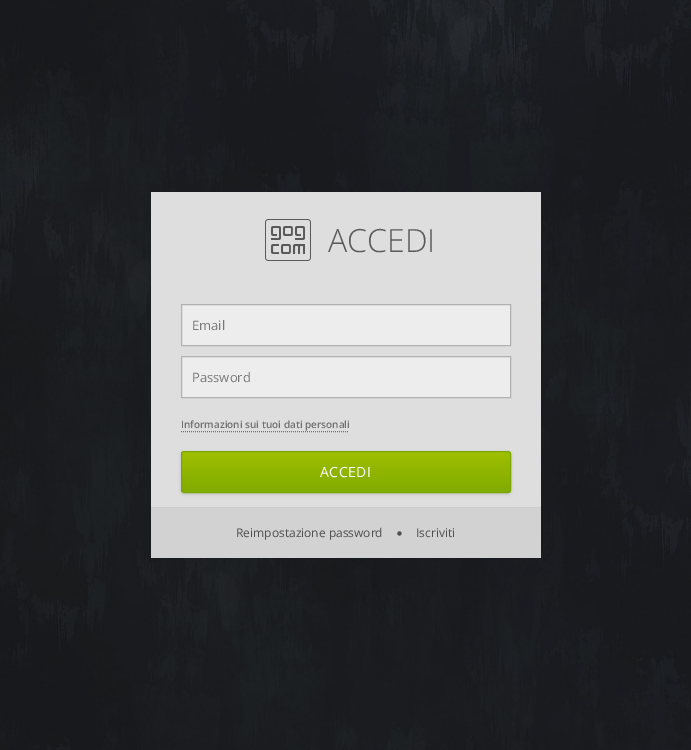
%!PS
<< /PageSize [691 750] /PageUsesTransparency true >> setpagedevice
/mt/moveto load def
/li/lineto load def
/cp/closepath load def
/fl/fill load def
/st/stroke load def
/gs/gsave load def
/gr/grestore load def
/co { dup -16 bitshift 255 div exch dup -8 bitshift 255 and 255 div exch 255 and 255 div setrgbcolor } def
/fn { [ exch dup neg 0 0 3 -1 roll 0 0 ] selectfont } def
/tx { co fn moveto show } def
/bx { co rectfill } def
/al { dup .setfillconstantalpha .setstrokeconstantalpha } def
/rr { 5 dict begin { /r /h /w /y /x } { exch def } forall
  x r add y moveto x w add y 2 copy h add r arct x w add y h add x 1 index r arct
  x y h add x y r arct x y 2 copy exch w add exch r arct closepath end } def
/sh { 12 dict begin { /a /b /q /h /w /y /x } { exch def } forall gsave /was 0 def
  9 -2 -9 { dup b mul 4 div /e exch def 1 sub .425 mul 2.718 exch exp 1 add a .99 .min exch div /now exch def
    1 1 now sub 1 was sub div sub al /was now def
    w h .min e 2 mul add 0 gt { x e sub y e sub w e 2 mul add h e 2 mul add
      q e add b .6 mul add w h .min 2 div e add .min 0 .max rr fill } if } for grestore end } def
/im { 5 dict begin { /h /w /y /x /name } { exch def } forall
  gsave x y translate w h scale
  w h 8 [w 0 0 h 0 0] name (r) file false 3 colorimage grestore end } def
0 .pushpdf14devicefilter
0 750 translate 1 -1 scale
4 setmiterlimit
0 0 691 750 16#FFFFFF bx
(media/1.raw) 0 0 691 750 im
151 192 390 315 16#DEDEDE bx
(media/2.raw) 265 219 46 42 im
16#EDEDED co
181.5 304.5 mt 510.5 304.5 li 510.5 345.5 li 181.5 345.5 li cp gs fl gr
16#B1B1B1 co
st
16#EDEDED co
181.5 356.5 mt 510.5 356.5 li 510.5 397.5 li 181.5 397.5 li cp gs fl gr
16#B1B1B1 co
st
16#6F6F6F co
[1 1] 0 setdash
181 431.5 mt 349 431.5 li st
16#000000 co
181 452 330 42 3 1.5 .15 sh
gs
181 451 330 42 3 rr clip newpath
gs 181 452 mt 511 452 li 511 492 li 181 492 li cp clip newpath
<< /ShadingType 2 /ColorSpace /DeviceRGB /Coords [346 452 346 492] /Extend [true true] /Function << /FunctionType 2 /Domain [0 1] /C0 [.624 .749 0] /C1 [.502 .671 0] /N 1 >> >> shfill gr
gr
16#7CA600 co
[] 0 setdash
181.5 451.5 329 41 2.5 rr st
151 508 390 50 16#D2D2D2 bx
151 507 390 1 16#CCCCCC bx
(ACCEDI) 328 252 /OpenSans-Light 32 16#595959 tx
(Email) 192 330 /OpenSans-Regular 13 16#777777 tx
(Password) 192 382 /OpenSans-Regular 13 16#777777 tx
(Informazioni sui tuoi dati personali) 181 428 /OpenSans-SemiBold 10 16#6F6F6F tx
/OpenSans-Regular 14 fn
16#FFFFFF co
320 477 mt .5 0 (ACCEDI) ashow
(Reimpostazione password) 236 537 /OpenSans-Regular 12 16#4F4F4F tx
(•) 396 537 /Lato-Regular 12 16#4F4F4F tx
(Iscriviti) 416 537 /OpenSans-Regular 12 16#4F4F4F tx
.poppdf14devicefilter showpage
